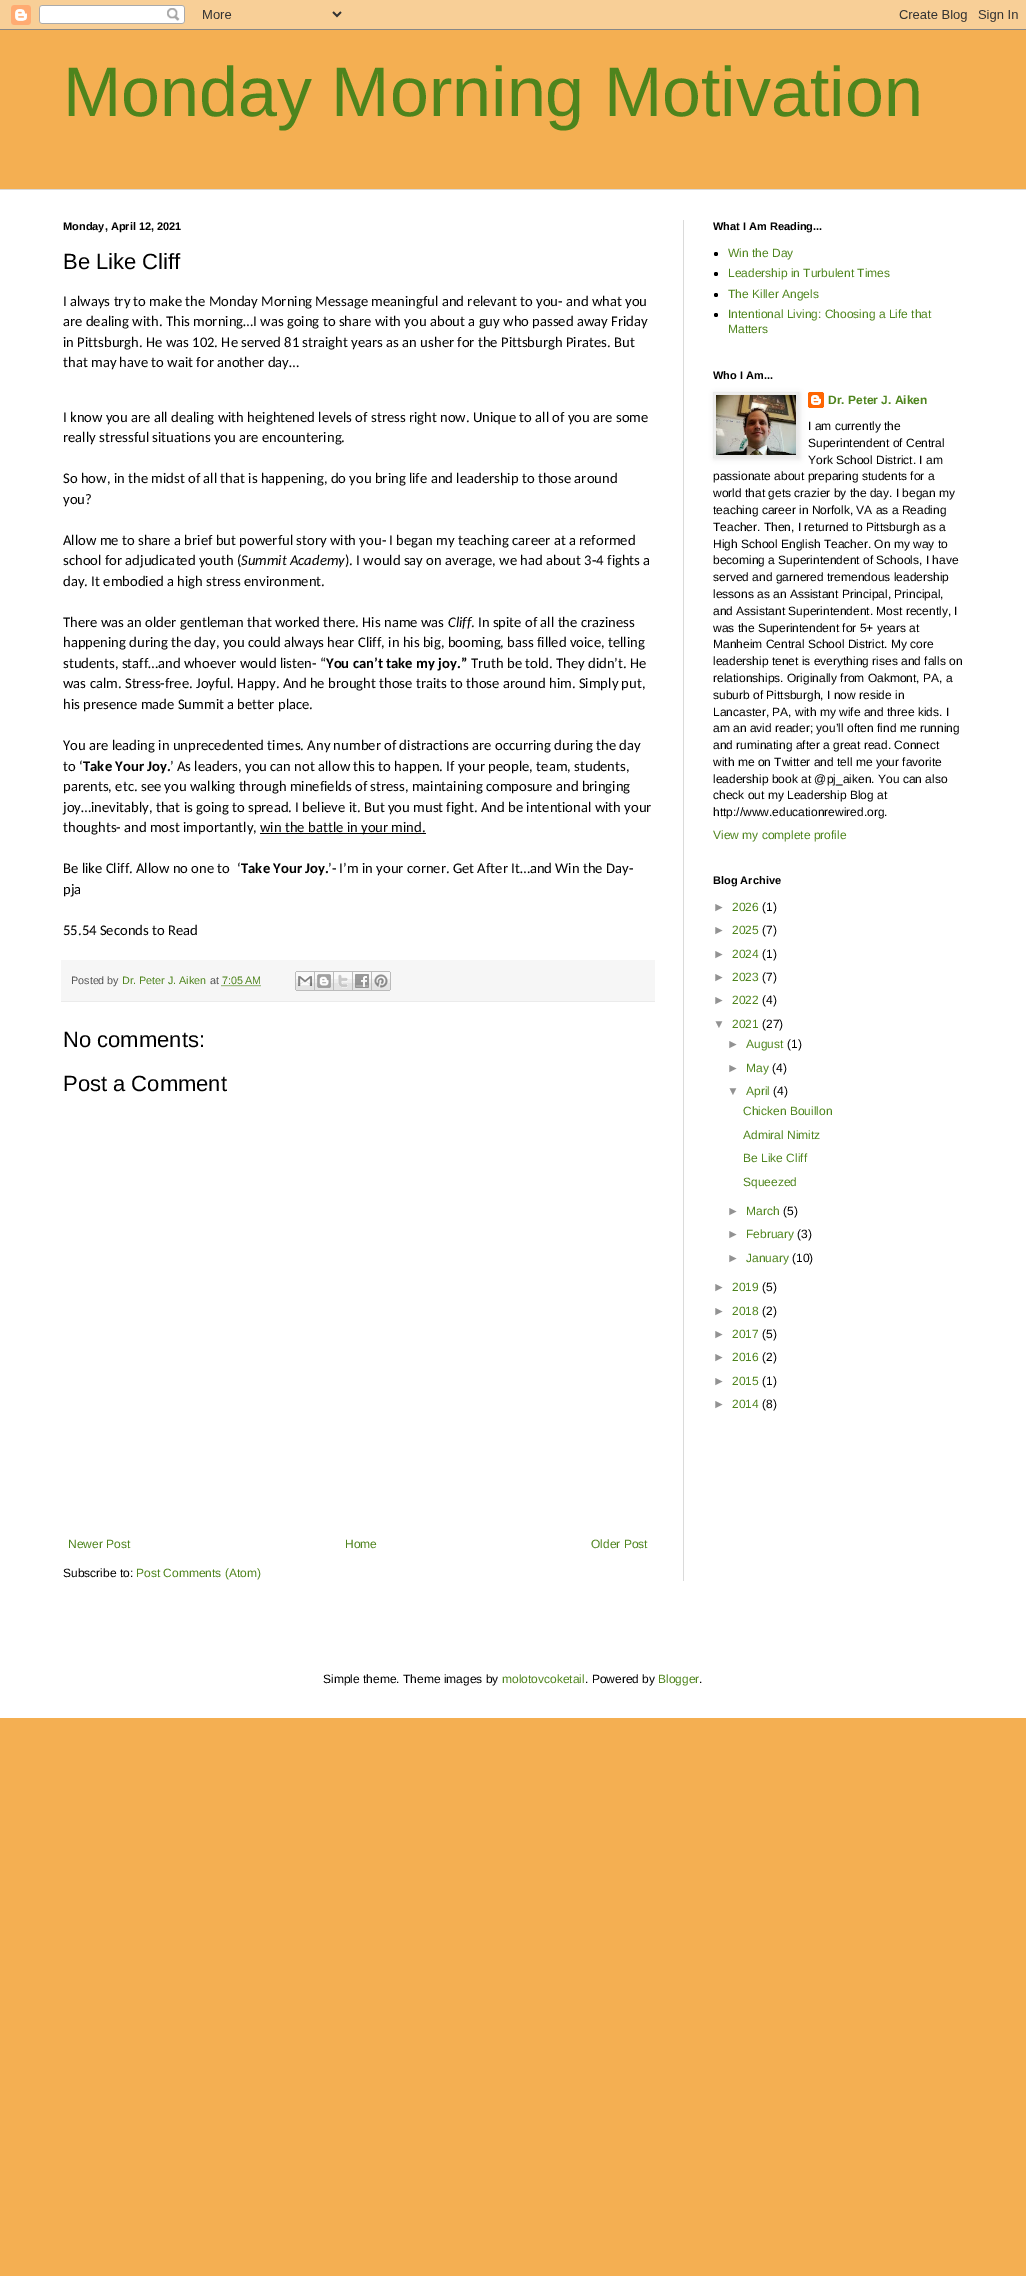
%!PS
<< /PageSize [1026 2276] /PageUsesTransparency true >> setpagedevice
/mt/moveto load def
/li/lineto load def
/fl/fill load def
/st/stroke load def
/co { dup -16 bitshift 255 div exch dup -8 bitshift 255 and 255 div exch 255 and 255 div setrgbcolor } def
/fn { [ exch dup neg 0 0 3 -1 roll 0 0 ] selectfont } def
/tx { co fn moveto show } def
/bx { co rectfill } def
/al { dup .setfillconstantalpha .setstrokeconstantalpha } def
/ci { newpath 0 360 arc closepath } def
/rr { 5 dict begin { /r /h /w /y /x } { exch def } forall
  x r add y moveto x w add y 2 copy h add r arct x w add y h add x 1 index r arct
  x y h add x y r arct x y 2 copy exch w add exch r arct closepath end } def
/sh { 12 dict begin { /a /b /q /h /w /y /x } { exch def } forall gsave /was 0 def
  9 -2 -9 { dup b mul 4 div /e exch def 1 sub .425 mul 2.718 exch exp 1 add a .99 .min exch div /now exch def
    1 1 now sub 1 was sub div sub al /was now def
    w h .min e 2 mul add 0 gt { x e sub y e sub w e 2 mul add h e 2 mul add
      q e add b .6 mul add w h .min 2 div e add .min 0 .max rr fill } if } for grestore end } def
/im { 5 dict begin { /h /w /y /x /name } { exch def } forall
  gsave x y translate w h scale
  w h 8 [w 0 0 h 0 0] name (r) file false 3 colorimage grestore end } def
0 .pushpdf14devicefilter
0 2276 translate 1 -1 scale
4 setmiterlimit
0 0 1026 2276 16#F4AF52 bx
(media/1.raw) 0 0 1026 30 im
0 190 1026 1528 16#FFFFFF bx
0 189 1026 1 16#DADADA bx
683 220 1 1361 16#DADADA bx
260 833 166 1 16#000000 bx
61 960 594 41 16#F6F6F6 bx
61 1001 594 1 16#EBEBEB bx
16#4E841D co
[1 1] 0 setdash
221.5 985.5 mt 261 985.5 li st
(media/2.raw) 295 971 20 20 im
(media/3.raw) 315 971 19 20 im
(media/4.raw) 334 971 19 20 im
(media/5.raw) 353 971 19 20 im
(media/6.raw) 372 971 19 20 im
16#000000 co
716 254 2 ci fl
716 274 2 ci fl
716 295 2 ci fl
716 315 2 ci fl
(media/8.raw) 808 392 16 16 im
714 393 86 66 0 2.5 .1 sh
16#EBEBEB co
[] 0 setdash
713.5 392.5 85 65 rectstroke
(media/7.raw) 716 395 80 60 im
(Monday Morning Motivation) 63 116 /LiberationSans-Regular 70 16#4E841D tx
(Monday, April 12, 2021) 63 230 /LiberationSans-Bold 11 16#000000 tx
(Be Like Cliff) 63 269 /LiberationSans-Regular 22 16#000000 tx
(I always try to make the Monday Morning Message meaningful and relevant to you- and what you) 63 306 /Carlito-Regular 14.65 16#000000 tx
(are dealing with. This morning…I was going to share with you about a guy who passed away Friday) 63 326 /Carlito-Regular 14.65 16#000000 tx
(in Pittsburgh. He was 102. He served 81 straight years as an usher for the Pittsburgh Pirates. But) 63 347 /Carlito-Regular 14.65 16#000000 tx
(that may have to wait for another day…) 63 367 /Carlito-Regular 14.65 16#000000 tx
(I know you are all dealing with heightened levels of stress right now. Unique to all of you are some) 63 422 /Carlito-Regular 14.65 16#000000 tx
(really stressful situations you are encountering.) 63 442 /Carlito-Regular 14.65 16#000000 tx
(So how, in the midst of all that is happening, do you bring life and leadership to those around) 63 483 /Carlito-Regular 14.65 16#000000 tx
(you?) 63 504 /Carlito-Regular 14.65 16#000000 tx
(Allow me to share a brief but powerful story with you- I began my teaching career at a reformed) 63 545 /Carlito-Regular 14.65 16#000000 tx
(school for adjudicated youth \() 63 565 /Carlito-Regular 14.65 16#000000 tx
(Summit Academy) 241 565 /Carlito-Italic 14.65 16#000000 tx
(\). I would say on average, we had about 3-4 fights a) 345 565 /Carlito-Regular 14.65 16#000000 tx
(day. It embodied a high stress environment.) 63 586 /Carlito-Regular 14.65 16#000000 tx
(There was an older gentleman that worked there. His name was) 63 627 /Carlito-Regular 14.65 16#000000 tx
(Cliff) 448 627 /Carlito-Italic 14.65 16#000000 tx
(. In spite of all the craziness) 471 627 /Carlito-Regular 14.65 16#000000 tx
(happening during the day, you could always hear Cliff, in his big, booming, bass filled voice, telling) 63 647 /Carlito-Regular 14.65 16#000000 tx
(students, staff…and whoever would listen- “) 63 668 /Carlito-Regular 14.65 16#000000 tx
(You can’t take my joy.”) 326 668 /Carlito-Bold 14.65 16#000000 tx
(Truth be told. They didn’t. He) 471 668 /Carlito-Regular 14.65 16#000000 tx
(was calm. Stress-free. Joyful. Happy. And he brought those traits to those around him. Simply put,) 63 688 /Carlito-Regular 14.65 16#000000 tx
(his presence made Summit a better place.) 63 709 /Carlito-Regular 14.65 16#000000 tx
(You are leading in unprecedented times. Any number of distractions are occurring during the day) 63 750 /Carlito-Regular 14.65 16#000000 tx
(to ‘) 63 771 /Carlito-Regular 14.65 16#000000 tx
(Take Your Joy.) 83 771 /Carlito-Bold 14.65 16#000000 tx
(’ As leaders, you can not allow this to happen. If your people, team, students,) 170 771 /Carlito-Regular 14.65 16#000000 tx
(parents, etc. see you walking through minefields of stress, maintaining composure and bringing) 63 791 /Carlito-Regular 14.65 16#000000 tx
(joy…inevitably, that is going to spread. I believe it. But you must fight. And be intentional with your) 63 812 /Carlito-Regular 14.65 16#000000 tx
(thoughts- and most importantly,) 63 832 /Carlito-Regular 14.65 16#000000 tx
(win the battle in your mind.) 260 832 /Carlito-Regular 14.65 16#000000 tx
(Be like Cliff. Allow no one to  ‘) 63 873 /Carlito-Regular 14.65 16#000000 tx
(Take Your Joy.) 241 873 /Carlito-Bold 14.65 16#000000 tx
(’- I’m in your corner. Get After It…and Win the Day-) 328 873 /Carlito-Regular 14.65 16#000000 tx
(pja) 63 894 /Carlito-Regular 14.65 16#000000 tx
(55.54 Seconds to Read) 63 935 /Carlito-Regular 14.65 16#000000 tx
(Posted by) 71 984 /LiberationSans-Regular 10.75 16#545454 tx
(Dr. Peter J. Aiken) 122 984 /LiberationSans-Regular 10.75 16#4E841D tx
(at) 210 984 /LiberationSans-Regular 10.75 16#545454 tx
(7:05 AM) 222 984 /LiberationSans-Regular 10.75 16#4E841D tx
(No comments:) 63 1047 /LiberationSans-Regular 22 16#000000 tx
(Post a Comment) 63 1091 /LiberationSans-Regular 22 16#000000 tx
(Newer Post) 68 1548 /LiberationSans-Regular 12 16#4E841D tx
(Home) 345 1548 /LiberationSans-Regular 12 16#4E841D tx
(Older Post) 591 1548 /LiberationSans-Regular 12 16#4E841D tx
(Subscribe to:) 63 1577 /LiberationSans-Regular 12 16#000000 tx
(Post Comments \(Atom\)) 136 1577 /LiberationSans-Regular 12 16#4E841D tx
(What I Am Reading...) 713 230 /LiberationSans-Bold 11 16#000000 tx
(Win the Day) 728 257 /LiberationSans-Regular 12 16#4E841D tx
(Leadership in Turbulent Times) 728 277 /LiberationSans-Regular 12 16#4E841D tx
(The Killer Angels) 728 298 /LiberationSans-Regular 12 16#4E841D tx
(Intentional Living: Choosing a Life that) 728 318 /LiberationSans-Regular 12 16#4E841D tx
(Matters) 728 333 /LiberationSans-Regular 12 16#4E841D tx
(Who I Am...) 713 379 /LiberationSans-Bold 11 16#000000 tx
(Dr. Peter J. Aiken) 828 404 /LiberationSans-Bold 12 16#4E841D tx
(I am currently the) 808 430 /LiberationSans-Regular 12 16#000000 tx
(Superintendent of Central) 808 447 /LiberationSans-Regular 12 16#000000 tx
(York School District. I am) 808 464 /LiberationSans-Regular 12 16#000000 tx
(passionate about preparing students for a) 713 480 /LiberationSans-Regular 12 16#000000 tx
(world that gets crazier by the day. I began my) 713 497 /LiberationSans-Regular 12 16#000000 tx
(teaching career in Norfolk, VA as a Reading) 713 514 /LiberationSans-Regular 12 16#000000 tx
(Teacher. Then, I returned to Pittsburgh as a) 713 531 /LiberationSans-Regular 12 16#000000 tx
(High School English Teacher. On my way to) 713 548 /LiberationSans-Regular 12 16#000000 tx
(becoming a Superintendent of Schools, I have) 713 564 /LiberationSans-Regular 12 16#000000 tx
(served and garnered tremendous leadership) 713 581 /LiberationSans-Regular 12 16#000000 tx
(lessons as an Assistant Principal, Principal,) 713 598 /LiberationSans-Regular 12 16#000000 tx
(and Assistant Superintendent. Most recently, I) 713 615 /LiberationSans-Regular 12 16#000000 tx
(was the Superintendent for 5+ years at) 713 632 /LiberationSans-Regular 12 16#000000 tx
(Manheim Central School District. My core) 713 648 /LiberationSans-Regular 12 16#000000 tx
(leadership tenet is everything rises and falls on) 713 665 /LiberationSans-Regular 12 16#000000 tx
(relationships. Originally from Oakmont, PA, a) 713 682 /LiberationSans-Regular 12 16#000000 tx
(suburb of Pittsburgh, I now reside in) 713 699 /LiberationSans-Regular 12 16#000000 tx
(Lancaster, PA, with my wife and three kids. I) 713 716 /LiberationSans-Regular 12 16#000000 tx
(am an avid reader; you’ll often find me running) 713 732 /LiberationSans-Regular 12 16#000000 tx
(and ruminating after a great read. Connect) 713 749 /LiberationSans-Regular 12 16#000000 tx
(with me on Twitter and tell me your favorite) 713 766 /LiberationSans-Regular 12 16#000000 tx
(leadership book at @pj_aiken. You can also) 713 783 /LiberationSans-Regular 12 16#000000 tx
(check out my Leadership Blog at) 713 799 /LiberationSans-Regular 12 16#000000 tx
(http://www.educationrewired.org.) 713 816 /LiberationSans-Regular 12 16#000000 tx
(View my complete profile) 713 839 /LiberationSans-Regular 12 16#4E841D tx
(Blog Archive) 713 884 /LiberationSans-Bold 11 16#000000 tx
(►) 713 911 /LiberationSans-Regular 12 16#929292 tx
(2026) 732 911 /LiberationSans-Regular 12 16#4E841D tx
(\(1\)) 762 911 /LiberationSans-Regular 12 16#000000 tx
(►) 713 934 /LiberationSans-Regular 12 16#929292 tx
(2025) 732 934 /LiberationSans-Regular 12 16#4E841D tx
(\(7\)) 762 934 /LiberationSans-Regular 12 16#000000 tx
(►) 713 958 /LiberationSans-Regular 12 16#929292 tx
(2024) 732 958 /LiberationSans-Regular 12 16#4E841D tx
(\(1\)) 762 958 /LiberationSans-Regular 12 16#000000 tx
(►) 713 981 /LiberationSans-Regular 12 16#929292 tx
(2023) 732 981 /LiberationSans-Regular 12 16#4E841D tx
(\(7\)) 762 981 /LiberationSans-Regular 12 16#000000 tx
(►) 713 1004 /LiberationSans-Regular 12 16#929292 tx
(2022) 732 1004 /LiberationSans-Regular 12 16#4E841D tx
(\(4\)) 762 1004 /LiberationSans-Regular 12 16#000000 tx
(▼) 713 1028 /LiberationSans-Regular 12 16#929292 tx
(2021) 732 1028 /LiberationSans-Regular 12 16#4E841D tx
(\(27\)) 762 1028 /LiberationSans-Regular 12 16#000000 tx
(►) 727 1048 /LiberationSans-Regular 12 16#929292 tx
(August) 746 1048 /LiberationSans-Regular 12 16#4E841D tx
(\(1\)) 787 1048 /LiberationSans-Regular 12 16#000000 tx
(►) 727 1072 /LiberationSans-Regular 12 16#929292 tx
(May) 746 1072 /LiberationSans-Regular 12 16#4E841D tx
(\(4\)) 772 1072 /LiberationSans-Regular 12 16#000000 tx
(▼) 727 1095 /LiberationSans-Regular 12 16#929292 tx
(April) 746 1095 /LiberationSans-Regular 12 16#4E841D tx
(\(4\)) 773 1095 /LiberationSans-Regular 12 16#000000 tx
(Chicken Bouillon) 743 1115 /LiberationSans-Regular 12 16#4E841D tx
(Admiral Nimitz) 743 1139 /LiberationSans-Regular 12 16#4E841D tx
(Be Like Cliff) 743 1162 /LiberationSans-Regular 12 16#4E841D tx
(Squeezed) 743 1186 /LiberationSans-Regular 12 16#4E841D tx
(►) 727 1215 /LiberationSans-Regular 12 16#929292 tx
(March) 746 1215 /LiberationSans-Regular 12 16#4E841D tx
(\(5\)) 783 1215 /LiberationSans-Regular 12 16#000000 tx
(►) 727 1238 /LiberationSans-Regular 12 16#929292 tx
(February) 746 1238 /LiberationSans-Regular 12 16#4E841D tx
(\(3\)) 797 1238 /LiberationSans-Regular 12 16#000000 tx
(►) 727 1262 /LiberationSans-Regular 12 16#929292 tx
(January) 746 1262 /LiberationSans-Regular 12 16#4E841D tx
(\(10\)) 792 1262 /LiberationSans-Regular 12 16#000000 tx
(►) 713 1291 /LiberationSans-Regular 12 16#929292 tx
(2019) 732 1291 /LiberationSans-Regular 12 16#4E841D tx
(\(5\)) 762 1291 /LiberationSans-Regular 12 16#000000 tx
(►) 713 1315 /LiberationSans-Regular 12 16#929292 tx
(2018) 732 1315 /LiberationSans-Regular 12 16#4E841D tx
(\(2\)) 762 1315 /LiberationSans-Regular 12 16#000000 tx
(►) 713 1338 /LiberationSans-Regular 12 16#929292 tx
(2017) 732 1338 /LiberationSans-Regular 12 16#4E841D tx
(\(5\)) 762 1338 /LiberationSans-Regular 12 16#000000 tx
(►) 713 1361 /LiberationSans-Regular 12 16#929292 tx
(2016) 732 1361 /LiberationSans-Regular 12 16#4E841D tx
(\(2\)) 762 1361 /LiberationSans-Regular 12 16#000000 tx
(►) 713 1385 /LiberationSans-Regular 12 16#929292 tx
(2015) 732 1385 /LiberationSans-Regular 12 16#4E841D tx
(\(1\)) 762 1385 /LiberationSans-Regular 12 16#000000 tx
(►) 713 1408 /LiberationSans-Regular 12 16#929292 tx
(2014) 732 1408 /LiberationSans-Regular 12 16#4E841D tx
(\(8\)) 762 1408 /LiberationSans-Regular 12 16#000000 tx
(Simple theme. Theme images by) 323 1683 /LiberationSans-Regular 12 16#000000 tx
(molotovcoketail) 502 1683 /LiberationSans-Regular 12 16#4E841D tx
(. Powered by) 585 1683 /LiberationSans-Regular 12 16#000000 tx
(Blogger) 658 1683 /LiberationSans-Regular 12 16#4E841D tx
(.) 699 1683 /LiberationSans-Regular 12 16#000000 tx
.poppdf14devicefilter showpage
